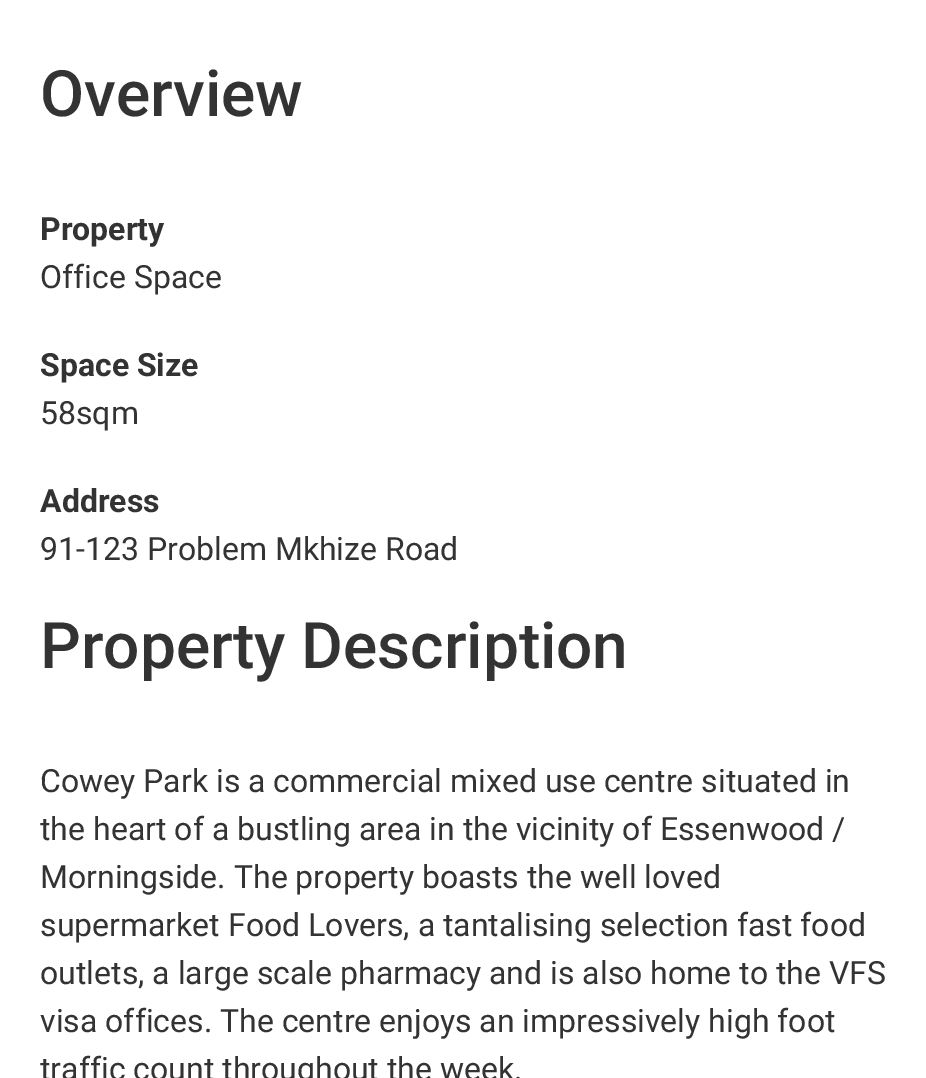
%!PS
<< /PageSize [926 1078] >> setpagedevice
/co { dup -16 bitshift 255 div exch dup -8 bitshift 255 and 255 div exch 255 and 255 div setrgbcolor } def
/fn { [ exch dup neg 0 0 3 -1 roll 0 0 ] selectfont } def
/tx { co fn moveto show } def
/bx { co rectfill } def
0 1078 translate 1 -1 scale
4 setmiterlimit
0 0 926 1078 16#FFFFFF bx
(Overview) 40 116 /Roboto-Medium 64 16#333333 tx
(Property) 40 240 /Roboto-Bold 32 16#333333 tx
(Office Space) 40 288 /Roboto-Regular 32 16#333333 tx
(Space Size) 40 376 /Roboto-Bold 32 16#333333 tx
(58sqm) 40 424 /Roboto-Regular 32 16#333333 tx
(Address) 40 512 /Roboto-Bold 32 16#333333 tx
(91-123 Problem Mkhize Road) 40 560 /Roboto-Regular 32 16#333333 tx
(Property Description) 40 668 /Roboto-Medium 64 16#333333 tx
(Cowey Park is a commercial mixed use centre situated in) 40 792 /Roboto-Regular 32 16#333333 tx
(the heart of a bustling area in the vicinity of Essenwood /) 40 840 /Roboto-Regular 32 16#333333 tx
(Morningside. The property boasts the well loved) 40 888 /Roboto-Regular 32 16#333333 tx
(supermarket Food Lovers, a tantalising selection fast food) 40 936 /Roboto-Regular 32 16#333333 tx
(outlets, a large scale pharmacy and is also home to the VFS) 40 984 /Roboto-Regular 32 16#333333 tx
(visa offices. The centre enjoys an impressively high foot) 40 1032 /Roboto-Regular 32 16#333333 tx
(traffic count throughout the week.) 40 1080 /Roboto-Regular 32 16#333333 tx
showpage
